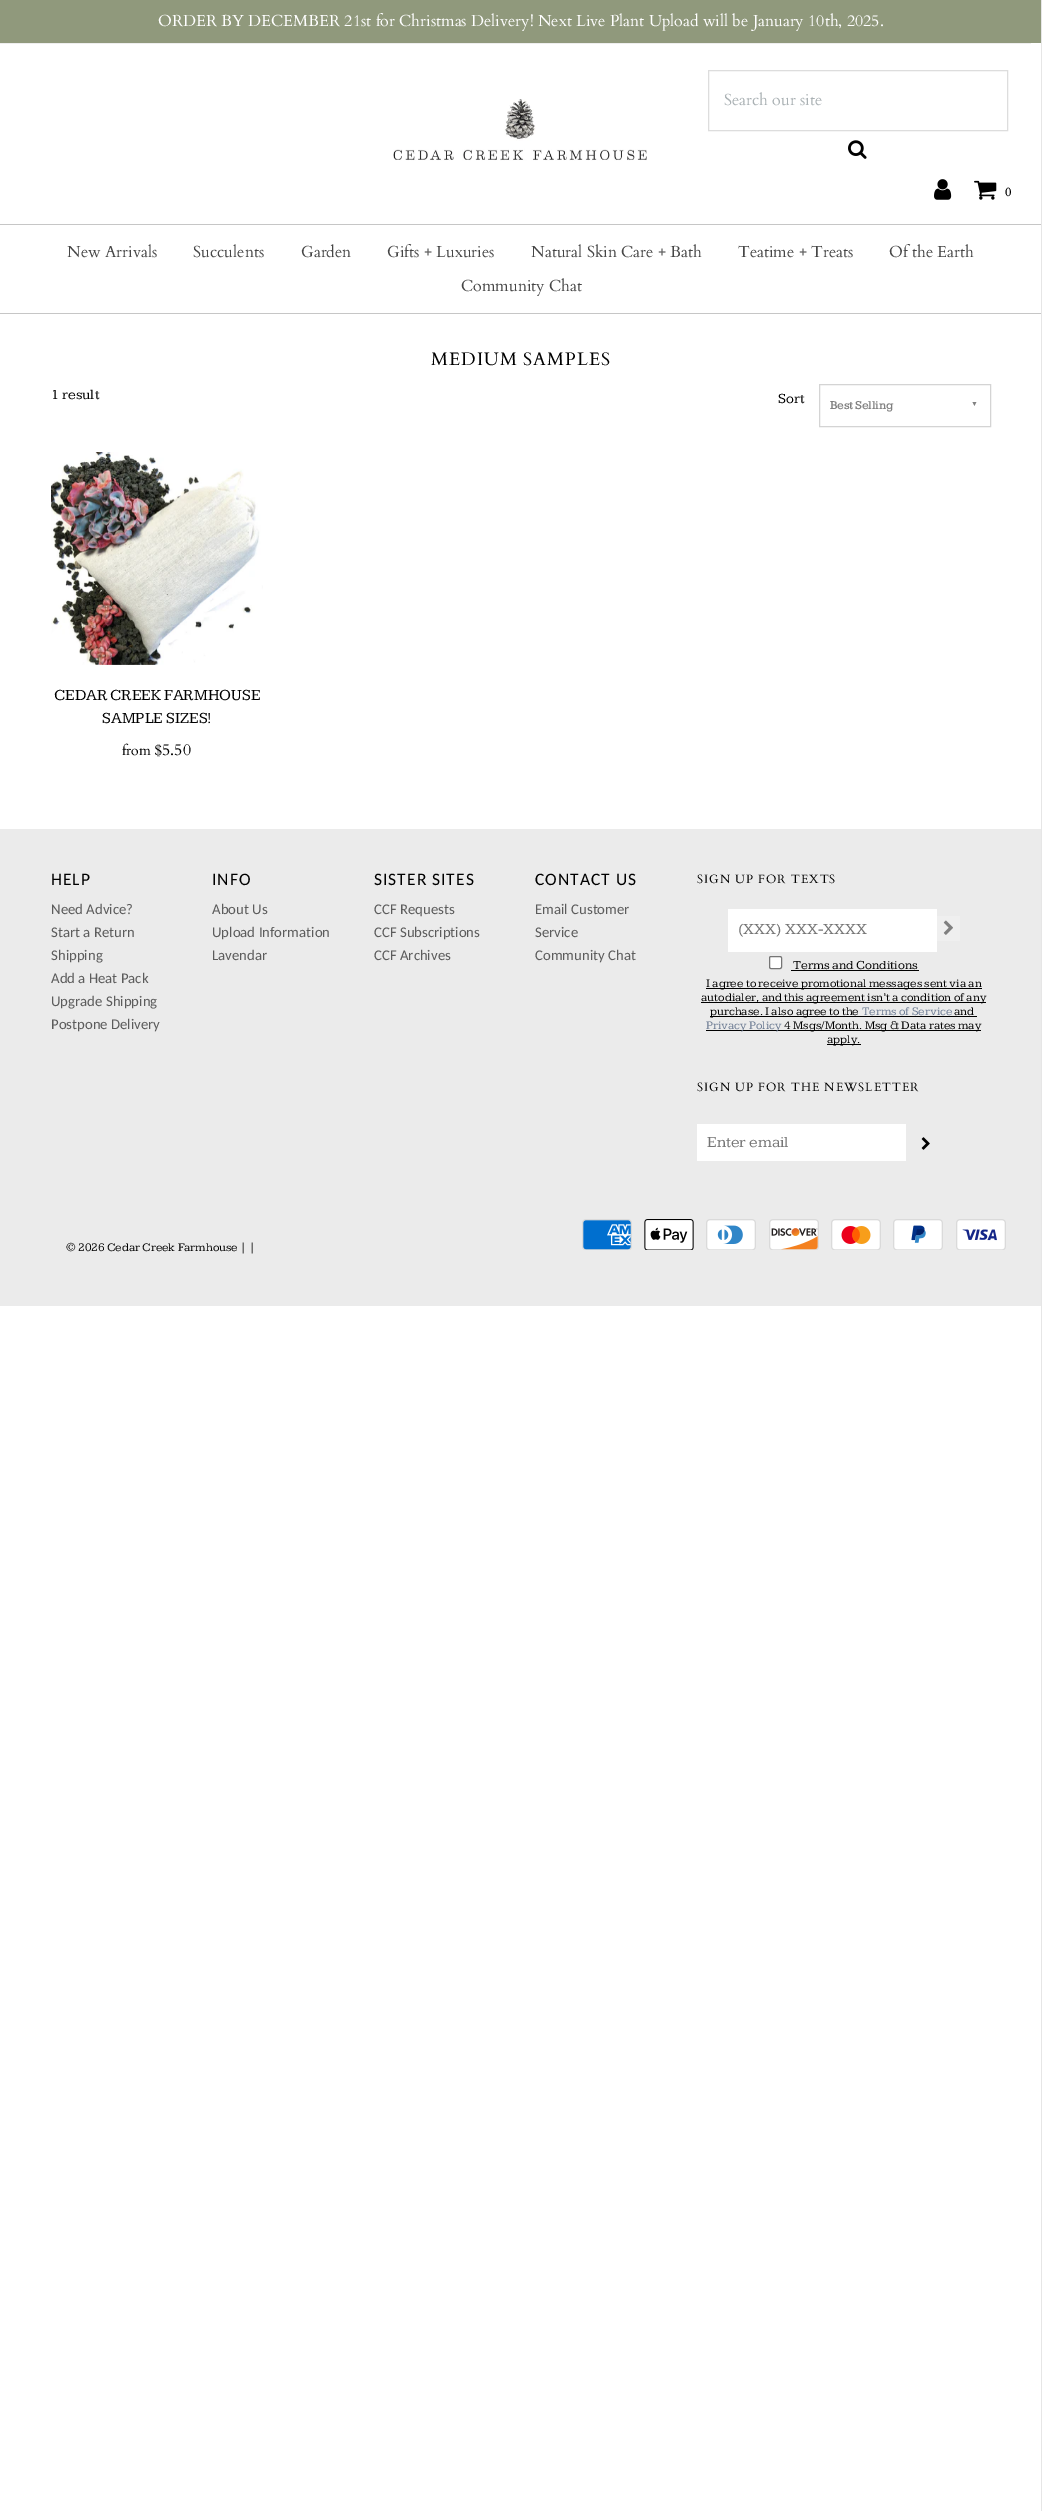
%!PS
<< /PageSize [1042 2511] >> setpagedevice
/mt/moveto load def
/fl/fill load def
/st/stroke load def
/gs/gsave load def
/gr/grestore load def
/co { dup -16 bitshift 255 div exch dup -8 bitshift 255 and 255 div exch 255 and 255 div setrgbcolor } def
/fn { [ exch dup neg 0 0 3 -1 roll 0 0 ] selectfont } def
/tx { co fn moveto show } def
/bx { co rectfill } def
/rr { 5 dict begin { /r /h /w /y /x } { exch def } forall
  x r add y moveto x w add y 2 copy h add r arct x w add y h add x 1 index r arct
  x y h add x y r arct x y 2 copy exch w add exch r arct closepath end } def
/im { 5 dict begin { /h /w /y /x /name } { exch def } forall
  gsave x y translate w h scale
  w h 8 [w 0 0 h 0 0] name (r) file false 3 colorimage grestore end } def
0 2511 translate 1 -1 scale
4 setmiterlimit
0 0 1042 2511 16#FFFFFF bx
1041 0 1 2511 16#E6E6E6 bx
0 0 1041 43 16#90997C bx
0 43 1031 1 16#EEEEEE bx
(media/1.raw) 393 99 254 62 im
16#DDDDDD co
708.5 70.5 299 60 rectstroke
(media/2.raw) 848 140 19 19 im
(media/3.raw) 934 179 18 21 im
(media/4.raw) 974 180 23 20 im
0 224 1041 1 16#C6C6C6 bx
0 313 1041 1 16#C6C6C6 bx
16#D4D4D4 co
819.5 384.5 171 42 rectstroke
(media/5.raw) 51 452 212 213 im
0 829 1041 477 16#EBEBEB bx
728 909 209 43 16#FFFFFF bx
937 916 23 25 16#EFEFEF bx
(media/6.raw) 943 920 10 15 im
16#FFFFFF co
769.5 956.5 12 12 1.5 rr gs fl gr
16#767676 co
st
791 970 128 1 16#000000 bx
706 988 276 1 16#000000 bx
701 1002 285 1 16#000000 bx
710 1016 267 1 16#000000 bx
706 1030 275 1 16#000000 bx
827 1044 34 1 16#000000 bx
697 1124 209 37 16#FFFFFF bx
(media/7.raw) 921 1137 9 13 im
(media/8.raw) 582 1219 50 31 im
(media/9.raw) 644 1219 50 31 im
(media/10.raw) 706 1219 50 31 im
(media/11.raw) 769 1219 50 31 im
(media/12.raw) 831 1219 50 31 im
(media/13.raw) 893 1219 50 31 im
(media/14.raw) 956 1219 50 31 im
(ORDER BY DECEMBER 21st for Christmas Delivery! Next Live Plant Upload will be January 10th, 2025.) 158 26 /Cardo-Regular 16 16#FFFFFF tx
(Search our site) 724 105 /Cardo-Regular 16 16#AAB1B4 tx
(0) 1005 196 /Cardo-Bold 12 16#000000 tx
(New Arrivals) 67 257 /Cardo-Regular 16 16#464646 tx
(Succulents) 193 257 /Cardo-Regular 16 16#464646 tx
(Garden) 301 257 /Cardo-Regular 16 16#464646 tx
(Gifts + Luxuries) 387 257 /Cardo-Regular 16 16#464646 tx
(Natural Skin Care + Bath) 531 257 /Cardo-Regular 16 16#464646 tx
(Teatime + Treats) 738 257 /Cardo-Regular 16 16#464646 tx
(Of the Earth) 889 257 /Cardo-Regular 16 16#464646 tx
(Community Chat) 461 291 /Cardo-Regular 16 16#464646 tx
/Cardo-Regular 18 fn
16#000000 co
431 365 mt 1 0 (MEDIUM SAMPLES) ashow
(1 result) 51 399 /Kameron-Regular 14.5 16#000000 tx
(Sort) 778 403 /Kameron-Regular 14.5 16#000000 tx
(Best Selling) 830 409 /Kameron-Bold 12 16#808080 tx
(▼) 971 406 /LiberationSerif-Bold 7 16#808080 tx
(CEDAR CREEK FARMHOUSE) 54 700 /Kameron-Regular 16 16#000000 tx
(SAMPLE SIZES!) 102 723 /Kameron-Regular 16 16#000000 tx
(from) 122 755 /Cardo-Regular 14 16#000000 tx
($5.50) 154 755 /Cardo-Regular 16 16#000000 tx
/Carlito-Regular 17.5 fn
51 885 mt 1 0 (HELP) ashow
(Need Advice?) 51 914 /Carlito-Regular 14.75 16#5C5C5C tx
(Start a Return) 51 937 /Carlito-Regular 14.75 16#5C5C5C tx
(Shipping) 51 960 /Carlito-Regular 14.75 16#5C5C5C tx
(Add a Heat Pack) 51 983 /Carlito-Regular 14.75 16#5C5C5C tx
(Upgrade Shipping) 51 1006 /Carlito-Regular 14.75 16#5C5C5C tx
(Postpone Delivery) 51 1029 /Carlito-Regular 14.75 16#5C5C5C tx
/Carlito-Regular 17.5 fn
16#000000 co
212 885 mt 1 0 (INFO) ashow
(About Us) 212 914 /Carlito-Regular 14.75 16#5C5C5C tx
(Upload Information) 212 937 /Carlito-Regular 14.75 16#5C5C5C tx
(Lavendar) 212 960 /Carlito-Regular 14.75 16#5C5C5C tx
/Carlito-Regular 17.5 fn
16#000000 co
374 885 mt 1 0 (SISTER SITES) ashow
(CCF Requests) 374 914 /Carlito-Regular 14.75 16#5C5C5C tx
(CCF Subscriptions) 374 937 /Carlito-Regular 14.75 16#5C5C5C tx
(CCF Archives) 374 960 /Carlito-Regular 14.75 16#5C5C5C tx
/Carlito-Regular 17.5 fn
16#000000 co
535 885 mt 1 0 (CONTACT US) ashow
(Email Customer) 535 914 /Carlito-Regular 14.75 16#5C5C5C tx
(Service) 535 937 /Carlito-Regular 14.75 16#5C5C5C tx
(Community Chat) 535 960 /Carlito-Regular 14.75 16#5C5C5C tx
/Cardo-Regular 12 fn
16#000000 co
697 883 mt 1 0 (SIGN UP FOR TEXTS) ashow
(\(XXX\) XXX-XXXX) 738 934 /Kameron-Regular 16 16#757575 tx
(Terms and Conditions) 793 969 /Kameron-Regular 12.75 16#000000 tx
(I agree to receive promotional messages sent via an) 706 987 /Kameron-Regular 12 16#000000 tx
(autodialer, and this agreement isn’t a condition of any) 701 1001 /Kameron-Regular 12 16#000000 tx
(purchase. I also agree to the) 710 1015 /Kameron-Regular 12 16#000000 tx
(Terms of Service) 862 1015 /Kameron-Regular 12 16#6C7B93 tx
(and) 954 1015 /Kameron-Regular 12 16#000000 tx
(Privacy Policy) 706 1029 /Kameron-Regular 12 16#6C7B93 tx
(4 Msgs/Month. Msg & Data rates may) 784 1029 /Kameron-Regular 12 16#000000 tx
(apply.) 827 1043 /Kameron-Regular 12 16#000000 tx
/Cardo-Regular 12 fn
697 1091 mt 1 0 (SIGN UP FOR THE NEWSLETTER) ashow
(Enter email) 707 1147 /Kameron-Regular 16 16#757575 tx
(© 2026 Cedar Creek Farmhouse | |) 66 1251 /Kameron-Regular 12 16#000000 tx
showpage
